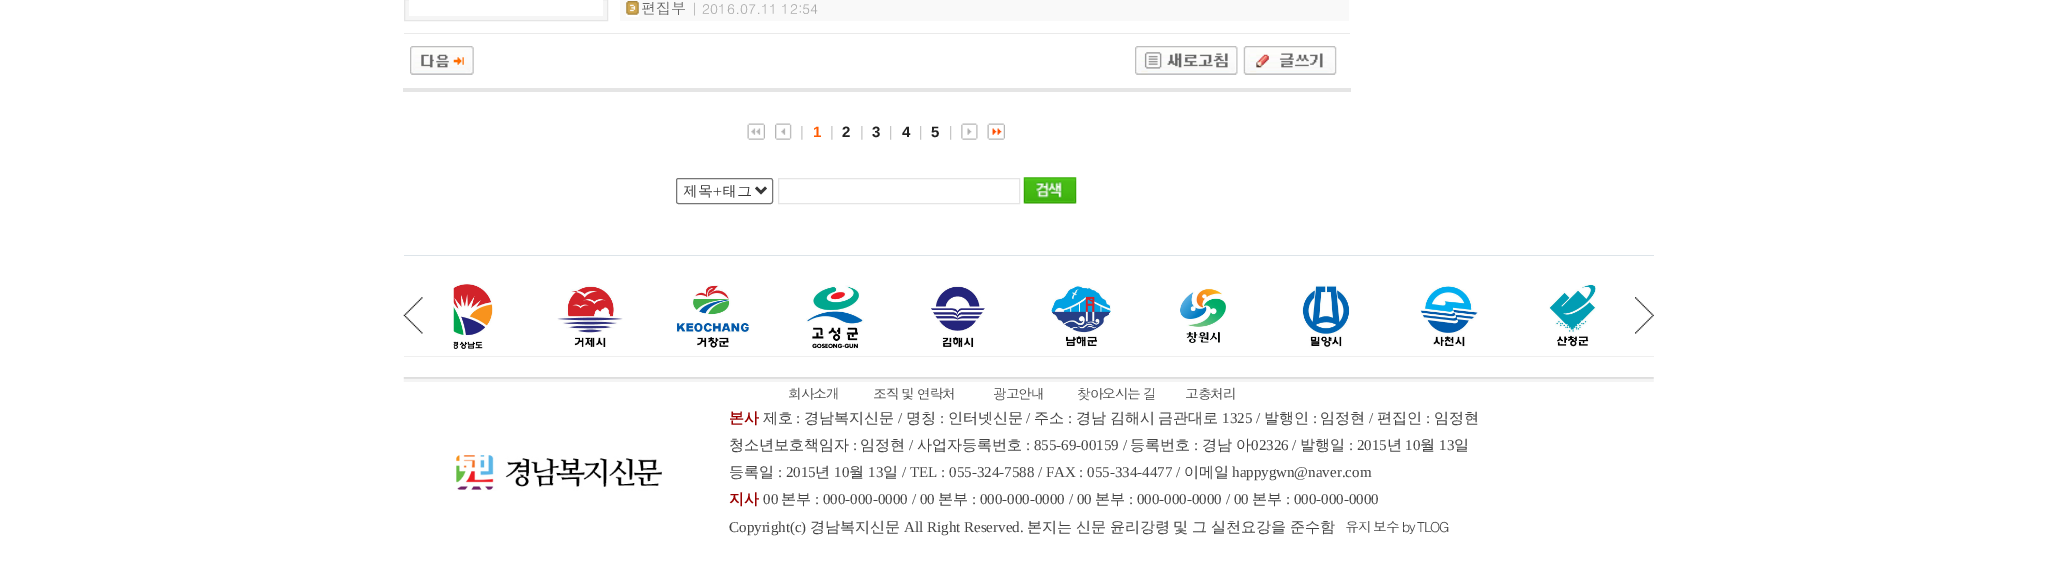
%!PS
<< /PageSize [2057 580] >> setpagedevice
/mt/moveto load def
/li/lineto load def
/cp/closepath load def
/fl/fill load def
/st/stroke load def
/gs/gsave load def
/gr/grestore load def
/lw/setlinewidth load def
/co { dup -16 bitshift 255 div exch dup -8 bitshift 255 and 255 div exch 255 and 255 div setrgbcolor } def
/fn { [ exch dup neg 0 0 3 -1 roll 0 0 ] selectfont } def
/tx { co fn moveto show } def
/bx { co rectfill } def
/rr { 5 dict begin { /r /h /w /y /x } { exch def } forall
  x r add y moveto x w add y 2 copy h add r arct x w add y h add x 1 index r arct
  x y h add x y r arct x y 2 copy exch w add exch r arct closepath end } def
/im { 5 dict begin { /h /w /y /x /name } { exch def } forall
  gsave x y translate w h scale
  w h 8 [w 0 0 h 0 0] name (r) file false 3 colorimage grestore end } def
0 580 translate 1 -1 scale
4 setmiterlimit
0 0 2057 580 16#FFFFFF bx
16#F5F5F5 co
404.5 -.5 mt 607.5 -.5 li 607.5 20.5 li 404.5 20.5 li cp gs fl gr
16#E5E5E5 co
st
409 0 194 16 16#FFFFFF bx
404 33 946 1 16#EAEAEA bx
620 0 729 21 16#F9F9F9 bx
(media/1.raw) 626 1 13 16 im
403 88 948 4 16#E5E5E5 bx
(media/2.raw) 410 46 64 29 im
(media/3.raw) 1135 46 103 29 im
(media/4.raw) 1243 46 94 29 im
(media/5.raw) 747 123 18 17 im
(media/6.raw) 775 123 17 17 im
(media/7.raw) 801 126 2 14 im
(media/7.raw) 831 126 2 14 im
(media/7.raw) 861 126 2 14 im
(media/8.raw) 890 126 2 14 im
(media/8.raw) 920 126 2 14 im
(media/8.raw) 950 126 2 14 im
(media/9.raw) 961 123 17 17 im
(media/10.raw) 987 123 18 17 im
16#767676 co
676.5 178.5 96 25 2 rr st
16#373737 co
2.5 lw
756 187.5 mt 761 192.5 li 766 187.5 li st
16#E5E5E5 co
1 lw
778.5 178.5 241 25 rectstroke
(media/11.raw) 1023 177 54 27 im
404 255 1250 1 16#DDE4E9 bx
(media/12.raw) 403 297 20 37 im
(media/13.raw) 453 283 40 66 im
(media/14.raw) 557 285 66 62 im
(media/15.raw) 676 285 74 63 im
(media/16.raw) 806 285 58 64 im
(media/17.raw) 931 285 54 63 im
(media/18.raw) 1051 285 60 62 im
(media/19.raw) 1180 288 46 55 im
(media/20.raw) 1302 285 48 63 im
(media/21.raw) 1420 285 58 62 im
(media/22.raw) 1549 284 47 63 im
(media/23.raw) 1635 297 19 37 im
404 356 1250 1 16#EFEFEF bx
(media/24.raw) 403 377 1251 5 im
(media/25.raw) 456 455 206 36 im
(편집부) 641 14 /Dotum-Regular 15 16#666666 tx
(| 2016.07.11 12:54) 691 14 /Dotum-Regular 13.75 16#AAAAAA tx
(1) 813 137 /LiberationSans-Bold 15 16#FF5B01 tx
(2) 842 137 /LiberationSans-Bold 15 16#222222 tx
(3) 872 137 /LiberationSans-Bold 15 16#222222 tx
(4) 902 137 /LiberationSans-Bold 15 16#222222 tx
(5) 931 137 /LiberationSans-Bold 15 16#222222 tx
(제목+태그) 683 197 /Dotum-Regular 15 16#373737 tx
/Dotum-Regular 13.75 fn
16#444444 co
788 399 mt -1.25 0 (회사소개) ashow
873 399 mt -1.25 0 (조직 및 연락처) ashow
993 399 mt -1.25 0 (광고안내) ashow
1077 399 mt -1.25 0 (찾아오시는 길) ashow
1185 399 mt -1.25 0 (고충처리) ashow
(본사) 729 423 /WenQuanYiZenHei-Bold 15 16#9A0000 tx
(제호) 763 423 /WenQuanYiZenHei-Medium 15 16#444444 tx
(:) 796 423 /LiberationSerif-Regular 15 16#444444 tx
(경남복지신문) 804 423 /WenQuanYiZenHei-Medium 15 16#444444 tx
(/) 898 423 /LiberationSerif-Regular 15 16#444444 tx
(명칭) 906 423 /WenQuanYiZenHei-Medium 15 16#444444 tx
(:) 940 423 /LiberationSerif-Regular 15 16#444444 tx
(인터넷신문) 948 423 /WenQuanYiZenHei-Medium 15 16#444444 tx
(/) 1026 423 /LiberationSerif-Regular 15 16#444444 tx
(주소) 1034 423 /WenQuanYiZenHei-Medium 15 16#444444 tx
(:) 1068 423 /LiberationSerif-Regular 15 16#444444 tx
(경남) 1076 423 /WenQuanYiZenHei-Medium 15 16#444444 tx
(김해시) 1110 423 /WenQuanYiZenHei-Medium 15 16#444444 tx
(금관대로) 1158 423 /WenQuanYiZenHei-Medium 15 16#444444 tx
(1325 /) 1222 423 /LiberationSerif-Regular 15 16#444444 tx
(발행인) 1264 423 /WenQuanYiZenHei-Medium 15 16#444444 tx
(:) 1313 423 /LiberationSerif-Regular 15 16#444444 tx
(임정현) 1320 423 /WenQuanYiZenHei-Medium 15 16#444444 tx
(/) 1369 423 /LiberationSerif-Regular 15 16#444444 tx
(편집인) 1377 423 /WenQuanYiZenHei-Medium 15 16#444444 tx
(:) 1426 423 /LiberationSerif-Regular 15 16#444444 tx
(임정현) 1434 423 /WenQuanYiZenHei-Medium 15 16#444444 tx
(청소년보호책임자) 729 450 /WenQuanYiZenHei-Medium 15 16#444444 tx
(:) 853 450 /LiberationSerif-Regular 15 16#444444 tx
(임정현) 860 450 /WenQuanYiZenHei-Medium 15 16#444444 tx
(/) 909 450 /LiberationSerif-Regular 15 16#444444 tx
(사업자등록번호) 917 450 /WenQuanYiZenHei-Medium 15 16#444444 tx
(: 855-69-00159 /) 1026 450 /LiberationSerif-Regular 15 16#444444 tx
(등록번호) 1130 450 /WenQuanYiZenHei-Medium 15 16#444444 tx
(:) 1194 450 /LiberationSerif-Regular 15 16#444444 tx
(경남) 1202 450 /WenQuanYiZenHei-Medium 15 16#444444 tx
(아) 1236 450 /WenQuanYiZenHei-Medium 15 16#444444 tx
(02326 /) 1251 450 /LiberationSerif-Regular 15 16#444444 tx
(발행일) 1300 450 /WenQuanYiZenHei-Medium 15 16#444444 tx
(: 2015) 1349 450 /LiberationSerif-Regular 15 16#444444 tx
(년) 1387 450 /WenQuanYiZenHei-Medium 15 16#444444 tx
(10) 1405 450 /LiberationSerif-Regular 15 16#444444 tx
(월) 1420 450 /WenQuanYiZenHei-Medium 15 16#444444 tx
(13) 1439 450 /LiberationSerif-Regular 15 16#444444 tx
(일) 1454 450 /WenQuanYiZenHei-Medium 15 16#444444 tx
(등록일) 729 477 /WenQuanYiZenHei-Medium 15 16#444444 tx
(: 2015) 778 477 /LiberationSerif-Regular 15 16#444444 tx
(년) 815 477 /WenQuanYiZenHei-Medium 15 16#444444 tx
(10) 834 477 /LiberationSerif-Regular 15 16#444444 tx
(월) 849 477 /WenQuanYiZenHei-Medium 15 16#444444 tx
(13) 868 477 /LiberationSerif-Regular 15 16#444444 tx
(일) 883 477 /WenQuanYiZenHei-Medium 15 16#444444 tx
(/ TEL : 055-324-7588 / FAX : 055-334-4477 /) 902 477 /LiberationSerif-Regular 15 16#444444 tx
(이메일) 1184 477 /WenQuanYiZenHei-Medium 15 16#444444 tx
(happygwn@naver.com) 1232 477 /LiberationSerif-Regular 15 16#444444 tx
(지사) 729 504 /WenQuanYiZenHei-Bold 15 16#9A0000 tx
(00) 763 504 /LiberationSerif-Regular 15 16#444444 tx
(본부) 781 504 /WenQuanYiZenHei-Medium 15 16#444444 tx
(: 000-000-0000 / 00) 815 504 /LiberationSerif-Regular 15 16#444444 tx
(본부) 938 504 /WenQuanYiZenHei-Medium 15 16#444444 tx
(: 000-000-0000 / 00) 972 504 /LiberationSerif-Regular 15 16#444444 tx
(본부) 1095 504 /WenQuanYiZenHei-Medium 15 16#444444 tx
(: 000-000-0000 / 00) 1129 504 /LiberationSerif-Regular 15 16#444444 tx
(본부) 1252 504 /WenQuanYiZenHei-Medium 15 16#444444 tx
(: 000-000-0000) 1286 504 /LiberationSerif-Regular 15 16#444444 tx
(Copyright\(c\)) 729 532 /LiberationSerif-Regular 15 16#444444 tx
(경남복지신문) 810 532 /WenQuanYiZenHei-Medium 15 16#444444 tx
(All Right Reserved.) 904 532 /LiberationSerif-Regular 15 16#444444 tx
(본지는) 1027 532 /WenQuanYiZenHei-Medium 15 16#444444 tx
(신문) 1076 532 /WenQuanYiZenHei-Medium 15 16#444444 tx
(윤리강령) 1110 532 /WenQuanYiZenHei-Medium 15 16#444444 tx
(및) 1173 532 /WenQuanYiZenHei-Medium 15 16#444444 tx
(그) 1192 532 /WenQuanYiZenHei-Medium 15 16#444444 tx
(실천요강을) 1211 532 /WenQuanYiZenHei-Medium 15 16#444444 tx
(준수함) 1290 532 /WenQuanYiZenHei-Medium 15 16#444444 tx
/Dotum-Regular 13.75 fn
1345 532 mt -1.25 0 (유지 보수 by TLOG) ashow
showpage
